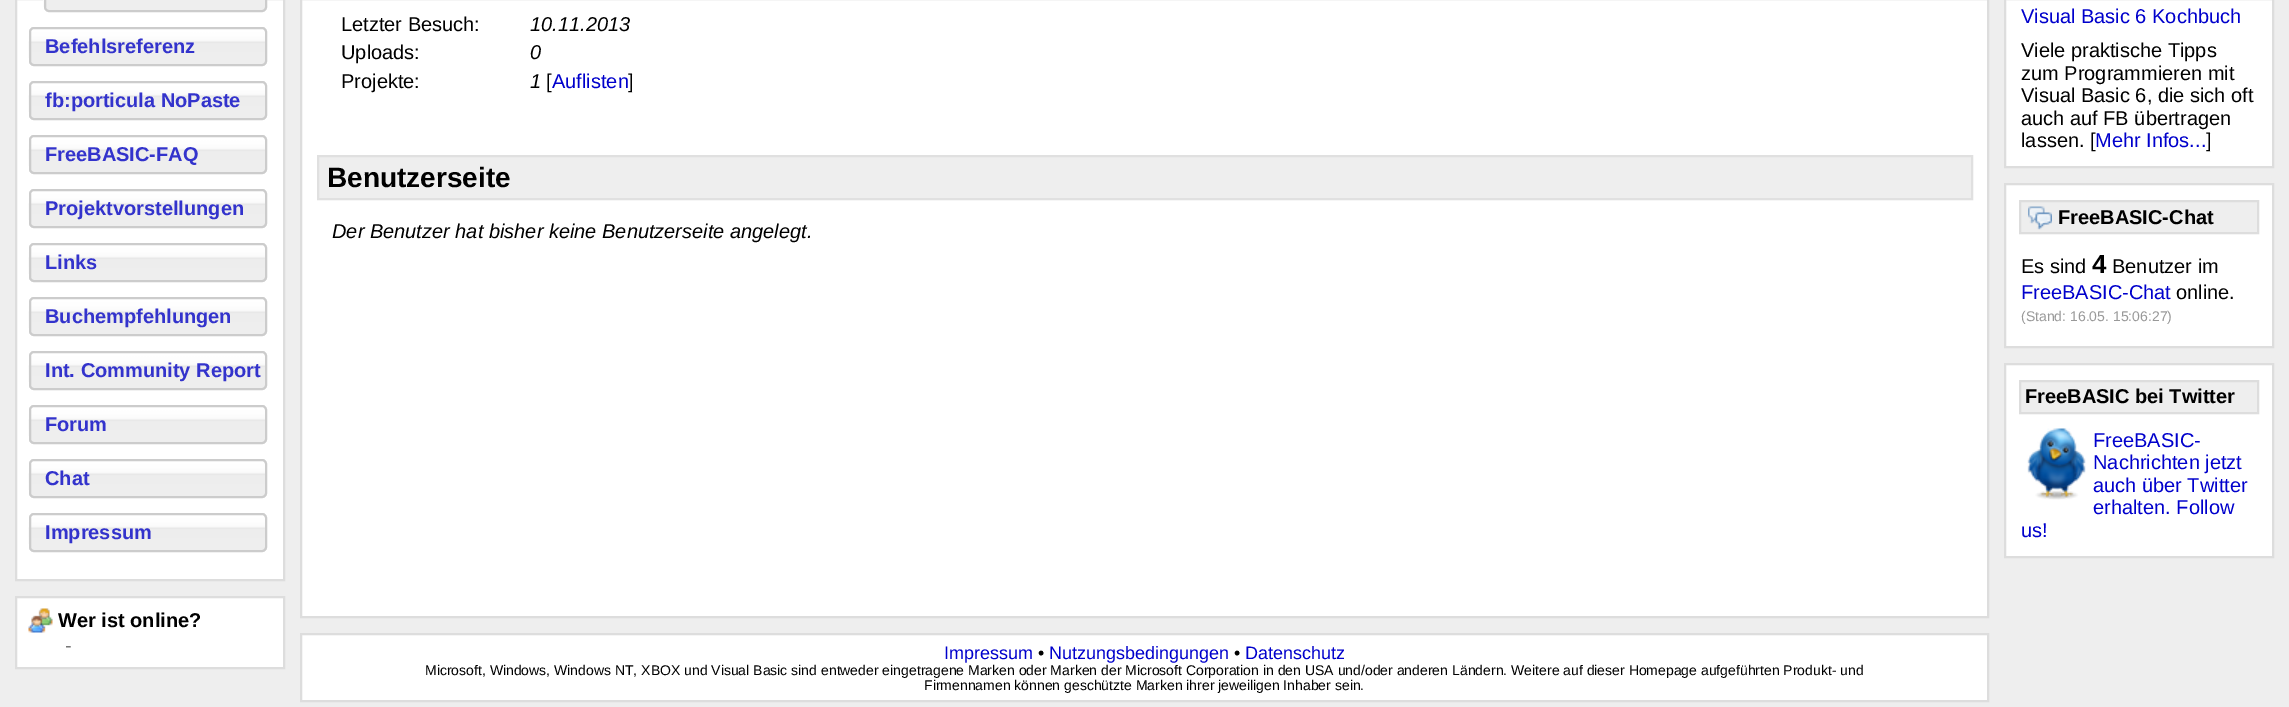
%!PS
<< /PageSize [2289 707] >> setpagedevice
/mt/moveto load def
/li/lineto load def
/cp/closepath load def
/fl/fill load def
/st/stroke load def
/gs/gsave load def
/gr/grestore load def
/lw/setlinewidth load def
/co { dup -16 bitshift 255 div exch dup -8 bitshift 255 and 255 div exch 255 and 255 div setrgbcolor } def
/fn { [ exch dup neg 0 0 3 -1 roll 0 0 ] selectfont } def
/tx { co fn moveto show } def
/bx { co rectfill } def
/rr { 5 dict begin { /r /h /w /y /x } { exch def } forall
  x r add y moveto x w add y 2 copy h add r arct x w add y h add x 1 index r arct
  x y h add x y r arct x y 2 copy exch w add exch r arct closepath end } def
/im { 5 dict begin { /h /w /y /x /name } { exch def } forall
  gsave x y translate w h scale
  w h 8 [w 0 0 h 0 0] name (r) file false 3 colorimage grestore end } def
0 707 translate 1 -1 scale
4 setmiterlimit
0 0 2289 707 16#EEEEEE bx
16#FFFFFF co
16 -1 mt 284 -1 li 284 580 li 16 580 li cp gs fl gr
16#DDDDDD co
2 lw
st
16#EEEEEE co
45 -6 221 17 4 rr gs fl gr
16#CCCCCC co
st
43 0 1 7 16#FBFBFB bx
16#EEEEEE co
29 27 238 39 5 rr fl
(media/1.raw) 28 28 239 30 im
16#CCCCCC co
30 28 236 37 4 rr st
16#EEEEEE co
29 81 238 39 5 rr fl
(media/2.raw) 28 82 239 30 im
16#CCCCCC co
30 82 236 37 4 rr st
16#EEEEEE co
29 135 238 39 5 rr fl
(media/3.raw) 28 136 239 30 im
16#CCCCCC co
30 136 236 37 4 rr st
16#EEEEEE co
29 189 238 39 5 rr fl
(media/2.raw) 28 190 239 30 im
16#CCCCCC co
30 190 236 37 4 rr st
16#EEEEEE co
29 243 238 39 5 rr fl
(media/2.raw) 28 244 239 30 im
16#CCCCCC co
30 244 236 37 4 rr st
16#EEEEEE co
29 297 238 39 5 rr fl
(media/2.raw) 28 298 239 30 im
16#CCCCCC co
30 298 236 37 4 rr st
16#EEEEEE co
29 351 238 39 5 rr fl
(media/3.raw) 28 352 239 30 im
16#CCCCCC co
30 352 236 37 4 rr st
16#EEEEEE co
29 405 238 39 5 rr fl
(media/4.raw) 28 406 239 30 im
16#CCCCCC co
30 406 236 37 4 rr st
16#EEEEEE co
29 459 238 39 5 rr fl
(media/2.raw) 28 460 239 30 im
16#CCCCCC co
30 460 236 37 4 rr st
16#EEEEEE co
29 513 238 39 5 rr fl
(media/2.raw) 28 514 239 30 im
16#CCCCCC co
30 514 236 37 4 rr st
16#FFFFFF co
16 597 mt 284 597 li 284 668 li 16 668 li cp gs fl gr
16#DDDDDD co
st
(media/5.raw) 28 608 25 25 im
16#FFFFFF co
301 -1 mt 1988 -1 li 1988 617 li 301 617 li cp gs fl gr
16#DDDDDD co
st
16#EEEEEE co
318 156 mt 1972 156 li 1972 199 li 318 199 li cp gs fl gr
16#E0E0E0 co
st
16#FFFFFF co
2005 -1 mt 2273 -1 li 2273 167 li 2005 167 li cp gs fl gr
16#DDDDDD co
st
16#FFFFFF co
2005 184 mt 2273 184 li 2273 347 li 2005 347 li cp gs fl gr
16#DDDDDD co
st
16#EEEEEE co
2020 201 mt 2258 201 li 2258 233 li 2020 233 li cp gs fl gr
16#DDDDDD co
st
(media/6.raw) 2028 206 24 24 im
16#FFFFFF co
2005 364 mt 2273 364 li 2273 557 li 2005 557 li cp gs fl gr
16#DDDDDD co
st
16#EEEEEE co
2020 381 mt 2258 381 li 2258 413 li 2020 413 li cp gs fl gr
16#DDDDDD co
st
(media/7.raw) 2027 428 59 72 im
16#FFFFFF co
301 634 mt 1988 634 li 1988 701 li 301 701 li cp gs fl gr
16#DDDDDD co
st
(Befehlsreferenz) 45 53 /LiberationSans-Bold 20 16#3333CC tx
(fb:porticula NoPaste) 45 107 /LiberationSans-Bold 20 16#3333CC tx
(FreeBASIC-FAQ) 45 161 /LiberationSans-Bold 20 16#3333CC tx
(Projektvorstellungen) 45 215 /LiberationSans-Bold 20 16#3333CC tx
(Links) 45 269 /LiberationSans-Bold 20 16#3333CC tx
(Buchempfehlungen) 45 323 /LiberationSans-Bold 20 16#3333CC tx
(Int. Community Report) 45 377 /LiberationSans-Bold 20 16#3333CC tx
(Forum) 45 431 /LiberationSans-Bold 20 16#3333CC tx
(Chat) 45 485 /LiberationSans-Bold 20 16#3333CC tx
(Impressum) 45 539 /LiberationSans-Bold 20 16#3333CC tx
(Wer ist online?) 58 627 /LiberationSans-Bold 20 16#000000 tx
(-) 65 652 /LiberationSans-Regular 20 16#777777 tx
(Letzter Besuch:) 341 31 /LiberationSans-Regular 20 16#000000 tx
(10.11.2013) 530 31 /LiberationSans-Italic 20 16#000000 tx
(Uploads:) 341 59 /LiberationSans-Regular 20 16#000000 tx
(0) 530 59 /LiberationSans-Italic 20 16#000000 tx
(Projekte:) 341 88 /LiberationSans-Regular 20 16#000000 tx
(1) 530 88 /LiberationSans-Italic 20 16#000000 tx
([) 546 88 /LiberationSans-Regular 20 16#000000 tx
(Auflisten) 552 88 /LiberationSans-Regular 20 16#0000CC tx
(]) 628 88 /LiberationSans-Regular 20 16#000000 tx
(Benutzerseite) 327 187 /LiberationSans-Bold 28 16#000000 tx
(Der Benutzer hat bisher keine Benutzerseite angelegt.) 332 238 /LiberationSans-Italic 20 16#000000 tx
(Visual Basic 6 Kochbuch) 2021 23 /LiberationSans-Regular 20 16#0000CC tx
(Viele praktische Tipps) 2021 57 /LiberationSans-Regular 20 16#000000 tx
(zum Programmieren mit) 2021 80 /LiberationSans-Regular 20 16#000000 tx
(Visual Basic 6, die sich oft) 2021 102 /LiberationSans-Regular 20 16#000000 tx
(auch auf FB übertragen) 2021 125 /LiberationSans-Regular 20 16#000000 tx
(lassen. [) 2021 147 /LiberationSans-Regular 20 16#000000 tx
(Mehr Infos...) 2095 147 /LiberationSans-Regular 20 16#0000CC tx
(]) 2206 147 /LiberationSans-Regular 20 16#000000 tx
(FreeBASIC-Chat) 2058 224 /LiberationSans-Bold 20 16#000000 tx
(Es sind) 2021 273 /LiberationSans-Regular 20 16#000000 tx
(4) 2092 273 /LiberationSans-Bold 26 16#000000 tx
(Benutzer im) 2112 273 /LiberationSans-Regular 20 16#000000 tx
(FreeBASIC-Chat) 2021 299 /LiberationSans-Regular 20 16#0000CC tx
(online.) 2176 299 /LiberationSans-Regular 20 16#000000 tx
(\(Stand: 16.05. 15:06:27\)) 2021 321 /LiberationSans-Regular 14 16#999999 tx
(FreeBASIC bei Twitter) 2025 403 /LiberationSans-Bold 20 16#000000 tx
(FreeBASIC-) 2093 447 /LiberationSans-Regular 20 16#0000CC tx
(Nachrichten jetzt) 2093 469 /LiberationSans-Regular 20 16#0000CC tx
(auch über Twitter) 2093 492 /LiberationSans-Regular 20 16#0000CC tx
(erhalten. Follow) 2093 514 /LiberationSans-Regular 20 16#0000CC tx
(us!) 2021 537 /LiberationSans-Regular 20 16#0000CC tx
(Impressum) 944 659 /LiberationSans-Regular 18 16#0000CC tx
(•) 1038 659 /LiberationSans-Regular 18 16#000000 tx
(Nutzungsbedingungen) 1049 659 /LiberationSans-Regular 18 16#0000CC tx
(•) 1234 659 /LiberationSans-Regular 18 16#000000 tx
(Datenschutz) 1245 659 /LiberationSans-Regular 18 16#0000CC tx
(Microsoft, Windows, Windows NT, XBOX und Visual Basic sind entweder eingetragene Marken oder Marken der Microsoft Corporation in den USA und/oder anderen Ländern. Weitere auf dieser Homepage aufgeführten Produkt- und) 425 675 /LiberationSans-Regular 14 16#000000 tx
(Firmennamen können geschützte Marken ihrer jeweiligen Inhaber sein.) 924 690 /LiberationSans-Regular 14 16#000000 tx
showpage
